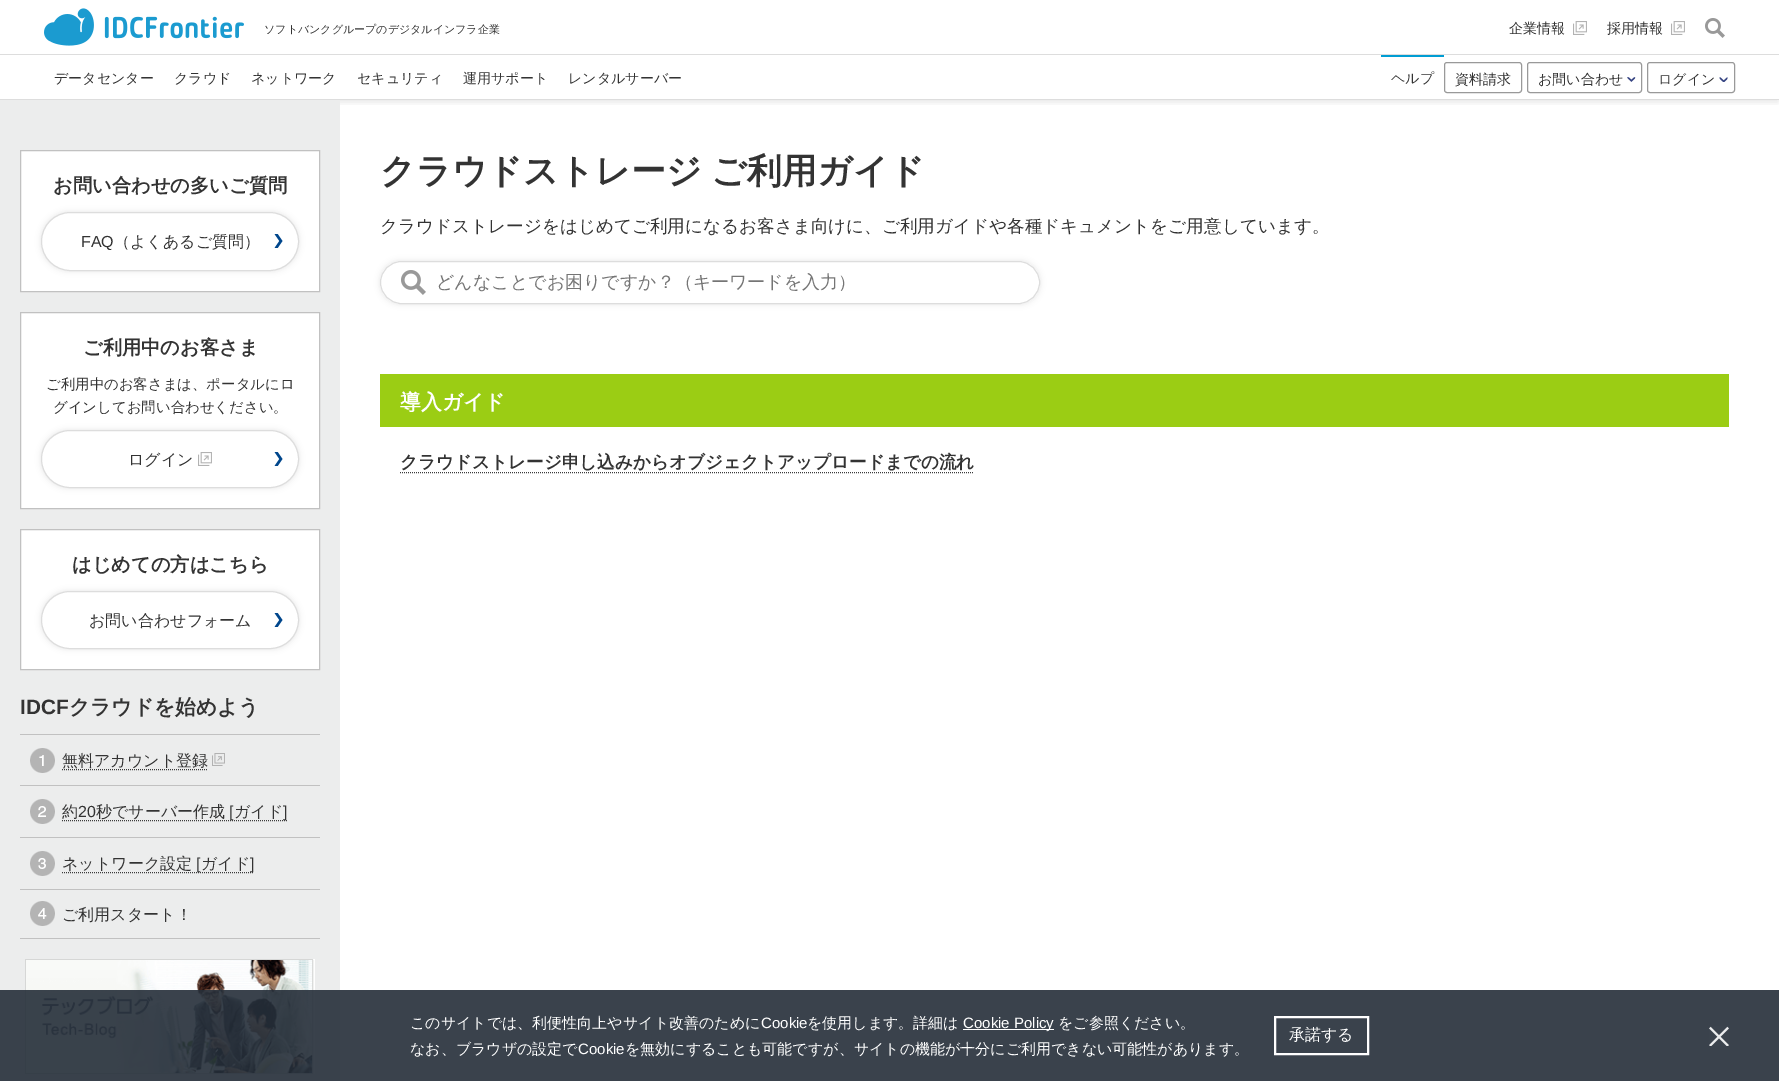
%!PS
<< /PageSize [1779 1081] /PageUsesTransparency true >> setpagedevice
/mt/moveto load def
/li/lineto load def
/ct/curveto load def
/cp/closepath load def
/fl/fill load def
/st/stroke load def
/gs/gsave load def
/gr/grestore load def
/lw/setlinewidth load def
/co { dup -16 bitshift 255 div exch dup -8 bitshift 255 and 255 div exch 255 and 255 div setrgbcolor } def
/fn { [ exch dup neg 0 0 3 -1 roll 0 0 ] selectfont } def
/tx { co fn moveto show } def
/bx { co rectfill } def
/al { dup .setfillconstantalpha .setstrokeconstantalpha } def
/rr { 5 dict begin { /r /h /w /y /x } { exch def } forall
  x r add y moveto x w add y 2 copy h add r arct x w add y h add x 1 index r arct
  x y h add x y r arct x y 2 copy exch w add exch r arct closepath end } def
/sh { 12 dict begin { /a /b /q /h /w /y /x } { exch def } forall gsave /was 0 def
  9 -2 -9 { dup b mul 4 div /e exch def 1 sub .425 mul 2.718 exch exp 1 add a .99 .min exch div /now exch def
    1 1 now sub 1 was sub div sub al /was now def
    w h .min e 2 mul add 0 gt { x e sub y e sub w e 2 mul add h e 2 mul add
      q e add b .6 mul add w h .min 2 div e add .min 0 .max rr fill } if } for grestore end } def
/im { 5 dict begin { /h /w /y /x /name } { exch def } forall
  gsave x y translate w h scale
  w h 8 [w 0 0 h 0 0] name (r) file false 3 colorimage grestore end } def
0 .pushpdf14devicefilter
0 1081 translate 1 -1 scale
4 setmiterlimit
0 0 1779 1081 16#FFFFFF bx
0 54 1779 1 16#DDDDDD bx
(media/1.raw) 44 8 200 38 im
(media/2.raw) 1573 21 14 14 im
(media/2.raw) 1671 21 14 14 im
(media/3.raw) 1705 18 20 20 im
gs
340 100 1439 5 rectclip
16#000000 co
3 61 1775 41 0 3.5 .1 sh
gr
0 99 1779 1 16#DDDDDD bx
1381 55 63 2 16#009DD3 bx
16#999999 co
1444.5 62.5 77 30 2.5 rr st
1527.5 62.5 114 30 2.5 rr st
(media/4.raw) 1627 77 9 5 im
1647.5 62.5 87 30 2.5 rr st
(media/5.raw) 1719 77 9 5 im
0 100 340 981 16#ECEDED bx
16#FFFFFF co
20.5 150.5 mt 319.5 150.5 li 319.5 291.5 li 20.5 291.5 li cp gs fl gr
16#C1C1C1 co
st
gs
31 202 mt 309 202 li 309 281 li 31 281 li cp 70.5 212 mt 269.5 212 li 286 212 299 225 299 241.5 ct 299 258 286 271 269.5 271 ct 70.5 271 li 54 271 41 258 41 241.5 ct 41 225 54 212 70.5 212 ct cp eoclip newpath
16#000000 co
41 212 258 59 29.5 3 .1 sh
gr
(media/6.raw) 274 234 9 14 im
16#DDDDDD co
41.5 212.5 257 58 29 rr st
16#FFFFFF co
20.5 312.5 mt 319.5 312.5 li 319.5 508.5 li 20.5 508.5 li cp gs fl gr
16#C1C1C1 co
st
gs
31 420 mt 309 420 li 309 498 li 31 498 li cp 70 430 mt 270 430 li 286 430 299 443 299 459 ct 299 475 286 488 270 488 ct 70 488 li 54 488 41 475 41 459 ct 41 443 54 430 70 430 ct cp eoclip newpath
16#000000 co
41 430 258 58 29 3 .1 sh
gr
(media/6.raw) 274 452 9 14 im
16#DDDDDD co
41.5 430.5 257 57 28.5 rr st
(media/2.raw) 198 452 14 14 im
16#FFFFFF co
20.5 529.5 mt 319.5 529.5 li 319.5 669.5 li 20.5 669.5 li cp gs fl gr
16#C1C1C1 co
st
gs
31 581 mt 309 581 li 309 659 li 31 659 li cp 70 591 mt 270 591 li 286 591 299 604 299 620 ct 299 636 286 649 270 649 ct 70 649 li 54 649 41 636 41 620 ct 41 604 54 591 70 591 ct cp eoclip newpath
16#000000 co
41 591 258 58 29 3 .1 sh
gr
(media/6.raw) 274 613 9 14 im
16#DDDDDD co
41.5 591.5 257 57 28.5 rr st
20 734 300 1 16#C1C1C1 bx
(media/7.raw) 30 748 25 25 im
20 785 300 1 16#C1C1C1 bx
16#3B3B3B co
[1 1] 0 setdash
62 769.5 mt 208 769.5 li st
(media/8.raw) 212 753 13 13 im
(media/9.raw) 30 799 25 25 im
20 837 300 1 16#C1C1C1 bx
16#3B3B3B co
62 820.5 mt 287 820.5 li st
(media/10.raw) 30 851 25 25 im
20 889 300 1 16#C1C1C1 bx
16#3B3B3B co
62 872.5 mt 254 872.5 li st
(media/11.raw) 30 901 25 25 im
20 938 300 1 16#C1C1C1 bx
(media/12.raw) 25 959 290 115 im
16#000000 co
380 261 660 43 21.5 3 .1 sh
16#FFFFFF co
380 261 660 43 21.5 rr fl
(media/13.raw) 401 270 25 25 im
16#DDDDDD co
[] 0 setdash
380.5 261.5 659 42 21 rr st
380 374 1349 53 16#9BCD14 bx
16#3B3B3B co
[1 1] 0 setdash
400 472.5 mt 974 472.5 li st
0.9 al
0 990 1779 91 16#252E39 bx
1 al
963 1029 91 1 16#FFFFFF bx
2 lw
[] 0 setdash
1275 1017 93 37 rectstroke
(media/14.raw) 1709 1026 20 20 im
(ソフトバンクグループのデジタルインフラ企業) 264 33 /WenQuanYiZenHei-Medium 11 16#333333 tx
(企業情報) 1509 33 /WenQuanYiZenHei-Medium 14 16#333333 tx
(採用情報) 1607 33 /WenQuanYiZenHei-Medium 14 16#333333 tx
(データセンター) 54 83 /WenQuanYiZenHei-Medium 14 16#333333 tx
(クラウド) 174 83 /WenQuanYiZenHei-Medium 14 16#333333 tx
(ネットワーク) 251 83 /WenQuanYiZenHei-Medium 14 16#333333 tx
(セキュリティ) 357 83 /WenQuanYiZenHei-Medium 14 16#333333 tx
(運用サポート) 463 83 /WenQuanYiZenHei-Medium 14 16#333333 tx
(レンタルサーバー) 568 83 /WenQuanYiZenHei-Medium 14 16#333333 tx
(ヘルプ) 1391 83 /WenQuanYiZenHei-Medium 14 16#333333 tx
(資料請求) 1455 84 /WenQuanYiZenHei-Medium 14 16#333333 tx
(お問い合わせ) 1538 84 /WenQuanYiZenHei-Medium 14 16#333333 tx
(ログイン) 1658 84 /WenQuanYiZenHei-Medium 14 16#333333 tx
(お問い合わせの多いご質問) 53 192 /WenQuanYiZenHei-Bold 19.25 16#333333 tx
(FAQ) 81 247 /LiberationSans-Regular 16 16#333333 tx
(（よくあるご質問）) 114 247 /WenQuanYiZenHei-Medium 16 16#333333 tx
(ご利用中のお客さま) 83 354 /WenQuanYiZenHei-Bold 19.25 16#333333 tx
(ご利用中のお客さまは、ポータルにロ) 46 389 /WenQuanYiZenHei-Medium 14.4 16#333333 tx
(グインしてお問い合わせください。) 53 412 /WenQuanYiZenHei-Medium 14.4 16#333333 tx
(ログイン) 128 465 /WenQuanYiZenHei-Medium 16 16#333333 tx
(はじめての方はこちら) 72 571 /WenQuanYiZenHei-Bold 19.25 16#333333 tx
(お問い合わせフォーム) 89 626 /WenQuanYiZenHei-Medium 16 16#333333 tx
(IDCF) 20 714 /LiberationSans-Bold 20.75 16#333333 tx
(クラウドを始めよう) 69 714 /WenQuanYiZenHei-Bold 20.75 16#333333 tx
(無料アカウント登録) 62 766 /WenQuanYiZenHei-Medium 16 16#333333 tx
(約) 62 817 /WenQuanYiZenHei-Medium 16 16#333333 tx
(20) 78 817 /LiberationSans-Regular 16 16#333333 tx
(秒でサーバー作成) 96 817 /WenQuanYiZenHei-Medium 16 16#333333 tx
([) 229 817 /LiberationSans-Regular 16 16#333333 tx
(ガイド) 234 817 /WenQuanYiZenHei-Medium 16 16#333333 tx
(]) 283 817 /LiberationSans-Regular 16 16#333333 tx
(ネットワーク設定) 62 869 /WenQuanYiZenHei-Medium 16 16#333333 tx
([) 196 869 /LiberationSans-Regular 16 16#333333 tx
(ガイド) 201 869 /WenQuanYiZenHei-Medium 16 16#333333 tx
(]) 250 869 /LiberationSans-Regular 16 16#333333 tx
(ご利用スタート！) 62 920 /WenQuanYiZenHei-Medium 16 16#333333 tx
/WenQuanYiZenHei-Bold 35 fn
380 183 mt -1 0 32 (クラウドストレージ ご利用ガイド) widthshow
(クラウドストレージをはじめてご利用になるお客さま向けに、ご利用ガイドや各種ドキュメントをご用意しています。) 380 232 /WenQuanYiZenHei-Medium 17.6 16#333333 tx
(どんなことでお困りですか？（キーワードを入力）) 436 288 /WenQuanYiZenHei-Medium 18 16#757575 tx
(導入ガイド) 400 409 /WenQuanYiZenHei-Bold 20.75 16#FFFFFF tx
(クラウドストレージ申し込みからオブジェクトアップロードまでの流れ) 400 468 /WenQuanYiZenHei-Bold 17.6 16#333333 tx
(このサイトでは、利便性向上やサイト改善のために) 410 1028 /WenQuanYiZenHei-Medium 15 16#FFFFFF tx
(Cookie) 761 1028 /LiberationSans-Regular 15 16#FFFFFF tx
(を使用します。詳細は) 807 1028 /WenQuanYiZenHei-Medium 15 16#FFFFFF tx
(Cookie Policy) 963 1028 /LiberationSans-Regular 15 16#FFFFFF tx
(をご参照ください。) 1058 1028 /WenQuanYiZenHei-Medium 15 16#FFFFFF tx
(なお、ブラウザの設定で) 410 1054 /WenQuanYiZenHei-Medium 15 16#FFFFFF tx
(Cookie) 578 1054 /LiberationSans-Regular 15 16#FFFFFF tx
(を無効にすることも可能ですが、サイトの機能が十分にご利用できない可能性があります。) 625 1054 /WenQuanYiZenHei-Medium 15 16#FFFFFF tx
(承諾する) 1289 1040 /WenQuanYiZenHei-Medium 16 16#FFFFFF tx
.poppdf14devicefilter showpage
